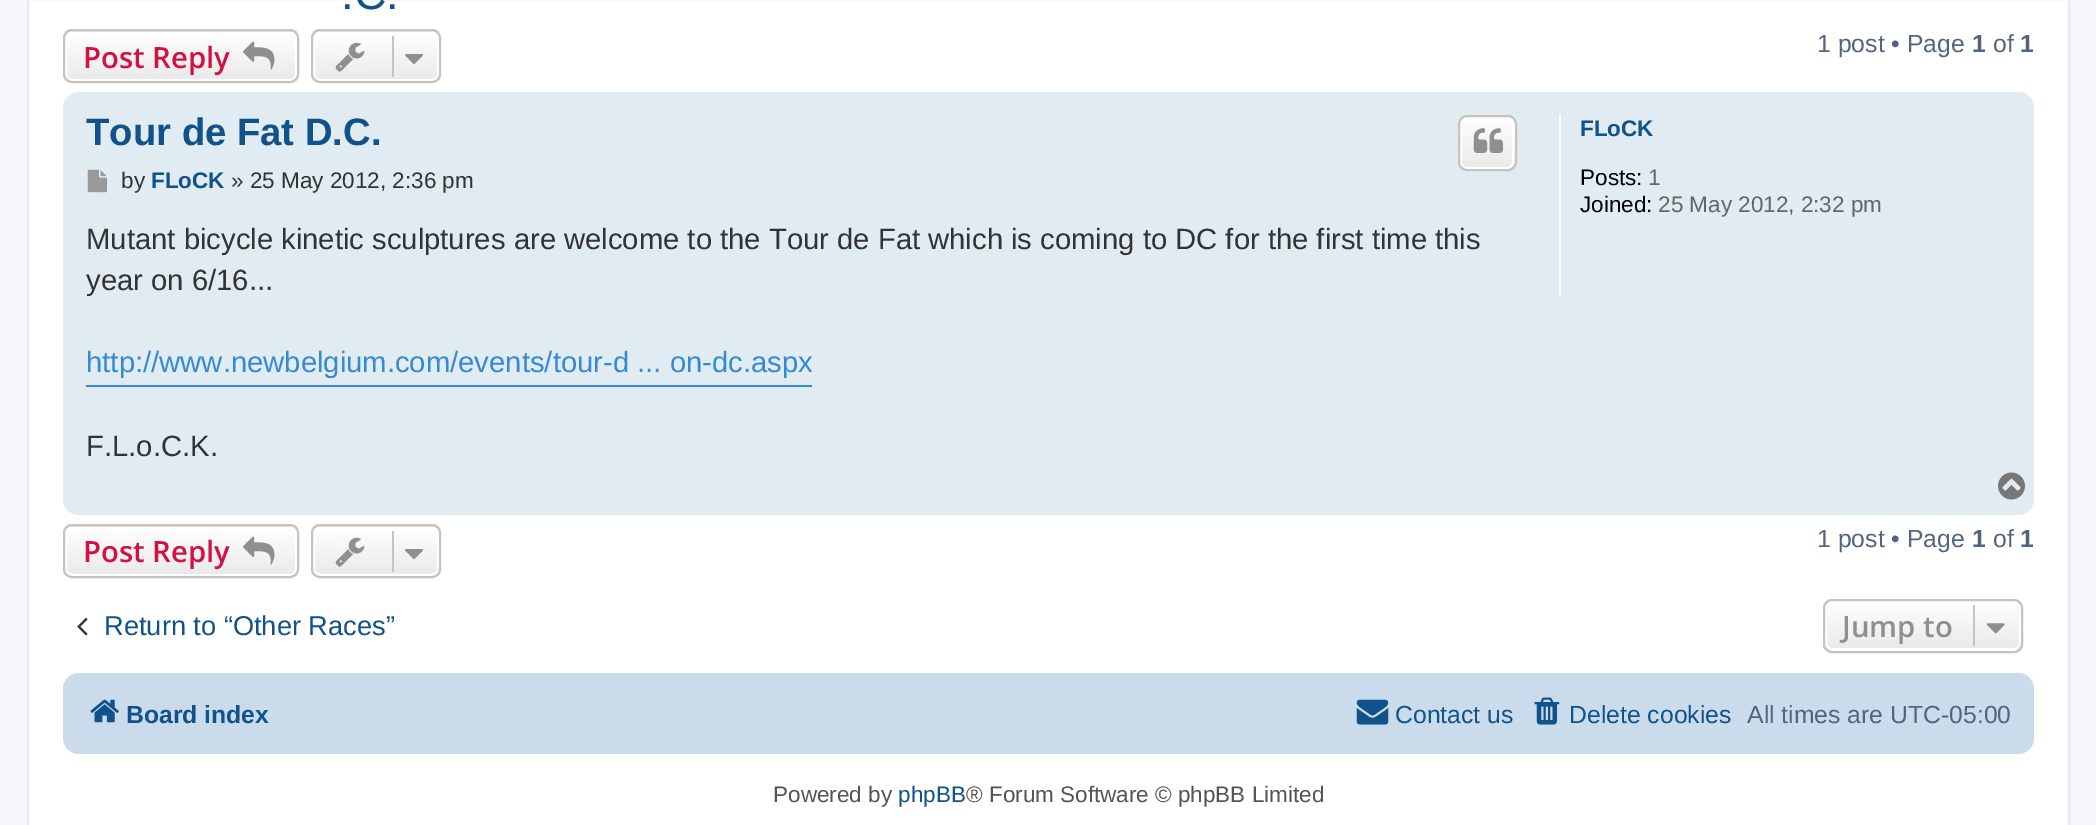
%!PS
<< /PageSize [2096 825] >> setpagedevice
/mt/moveto load def
/li/lineto load def
/cp/closepath load def
/fl/fill load def
/st/stroke load def
/gs/gsave load def
/gr/grestore load def
/lw/setlinewidth load def
/co { dup -16 bitshift 255 div exch dup -8 bitshift 255 and 255 div exch 255 and 255 div setrgbcolor } def
/fn { [ exch dup neg 0 0 3 -1 roll 0 0 ] selectfont } def
/tx { co fn moveto show } def
/bx { co rectfill } def
/rr { 5 dict begin { /r /h /w /y /x } { exch def } forall
  x r add y moveto x w add y 2 copy h add r arct x w add y h add x 1 index r arct
  x y h add x y r arct x y 2 copy exch w add exch r arct closepath end } def
/im { 5 dict begin { /h /w /y /x /name } { exch def } forall
  gsave x y translate w h scale
  w h 8 [w 0 0 h 0 0] name (r) file false 3 colorimage grestore end } def
0 825 translate 1 -1 scale
4 setmiterlimit
0 0 2096 825 16#F5F7FA bx
16#FFFFFF co
28 -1 mt 2069 -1 li 2069 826 li 28 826 li cp gs fl gr
16#E6E9ED co
2 lw
st
gs
63 29 236 54 9 rr clip newpath
gs 63 29 mt 299 29 li 299 32 li 63 32 li cp clip newpath
<< /ShadingType 2 /ColorSpace /DeviceRGB /Coords [181 -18 181 32] /Extend [true true] /Function << /FunctionType 2 /Domain [0 1] /C0 [1 1 1] /C1 [.914 .914 .914] /N 1 >> >> shfill gr
gs 63 32 mt 299 32 li 299 81 li 63 81 li cp clip newpath
<< /ShadingType 2 /ColorSpace /DeviceRGB /Coords [181 31 181 81] /Extend [true true] /Function << /FunctionType 2 /Domain [0 1] /C0 [1 1 1] /C1 [.914 .914 .914] /N 1 >> >> shfill gr
gr
16#FFFFFF co
66 33 230 47 6 rr st
16#C7C3BF co
64 30 234 52 8 rr st
(media/1.raw) 243 41 32 29 im
gs
311 29 130 54 9 rr clip newpath
gs 311 29 mt 441 29 li 441 32 li 311 32 li cp clip newpath
<< /ShadingType 2 /ColorSpace /DeviceRGB /Coords [376 -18 376 32] /Extend [true true] /Function << /FunctionType 2 /Domain [0 1] /C0 [1 1 1] /C1 [.914 .914 .914] /N 1 >> >> shfill gr
gs 311 32 mt 441 32 li 441 81 li 311 81 li cp clip newpath
<< /ShadingType 2 /ColorSpace /DeviceRGB /Coords [376 31 376 81] /Extend [true true] /Function << /FunctionType 2 /Domain [0 1] /C0 [1 1 1] /C1 [.914 .914 .914] /N 1 >> >> shfill gr
gr
16#FFFFFF co
314 33 124 47 6 rr st
16#C7C3BF co
312 30 128 52 8 rr st
(media/2.raw) 335 42 30 30 im
392 36 2 41 16#C7C3BF bx
(media/3.raw) 405 54 18 10 im
16#E1EBF2 co
63 92 1971 423 16 rr fl
gs
1458 115 59 56 9 rr clip newpath
gs 1458 117 mt 1517 117 li 1517 169 li 1458 169 li cp clip newpath
<< /ShadingType 2 /ColorSpace /DeviceRGB /Coords [1487 117 1487 169] /Extend [true true] /Function << /FunctionType 2 /Domain [0 1] /C0 [1 1 1] /C1 [.914 .914 .914] /N 1 >> >> shfill gr
gr
16#FFFFFF co
1461 118 52 50 6 rr st
16#C7C3BF co
1459 116 57 54 8 rr st
(media/4.raw) 1473 128 30 25 im
(media/5.raw) 87 169 20 24 im
86 385 726 2 16#368AD2 bx
1559 115 2 180 16#FFFFFF bx
(media/6.raw) 1998 472 27 28 im
gs
63 524 236 54 9 rr clip newpath
gs 63 524 mt 299 524 li 299 527 li 63 527 li cp clip newpath
<< /ShadingType 2 /ColorSpace /DeviceRGB /Coords [181 477 181 527] /Extend [true true] /Function << /FunctionType 2 /Domain [0 1] /C0 [1 1 1] /C1 [.914 .914 .914] /N 1 >> >> shfill gr
gs 63 527 mt 299 527 li 299 576 li 63 576 li cp clip newpath
<< /ShadingType 2 /ColorSpace /DeviceRGB /Coords [181 527 181 576] /Extend [true true] /Function << /FunctionType 2 /Domain [0 1] /C0 [1 1 1] /C1 [.914 .914 .914] /N 1 >> >> shfill gr
gr
66 528 230 47 6 rr st
16#C7C3BF co
64 525 234 52 8 rr st
(media/7.raw) 243 536 32 29 im
gs
311 524 130 54 9 rr clip newpath
gs 311 524 mt 441 524 li 441 527 li 311 527 li cp clip newpath
<< /ShadingType 2 /ColorSpace /DeviceRGB /Coords [376 477 376 527] /Extend [true true] /Function << /FunctionType 2 /Domain [0 1] /C0 [1 1 1] /C1 [.914 .914 .914] /N 1 >> >> shfill gr
gs 311 527 mt 441 527 li 441 576 li 311 576 li cp clip newpath
<< /ShadingType 2 /ColorSpace /DeviceRGB /Coords [376 527 376 576] /Extend [true true] /Function << /FunctionType 2 /Domain [0 1] /C0 [1 1 1] /C1 [.914 .914 .914] /N 1 >> >> shfill gr
gr
16#FFFFFF co
314 528 124 47 6 rr st
16#C7C3BF co
312 525 128 52 8 rr st
(media/8.raw) 335 537 30 30 im
392 531 2 41 16#C7C3BF bx
(media/9.raw) 405 549 18 10 im
(media/10.raw) 77 617 11 19 im
gs
1823 599 200 54 9 rr clip newpath
gs 1823 601 mt 2023 601 li 2023 650 li 1823 650 li cp clip newpath
<< /ShadingType 2 /ColorSpace /DeviceRGB /Coords [1923 601 1923 650] /Extend [true true] /Function << /FunctionType 2 /Domain [0 1] /C0 [1 1 1] /C1 [.914 .914 .914] /N 1 >> >> shfill gr
gr
16#FFFFFF co
1826 602 194 47 6 rr st
16#C7C3BF co
1824 600 198 52 8 rr st
1973 605 2 41 16#C7C3BF bx
(media/11.raw) 1986 623 19 11 im
16#CADCEB co
63 673 1971 81 16 rr fl
(media/12.raw) 90 699 29 24 im
(media/13.raw) 1356 699 33 26 im
(media/14.raw) 1534 697 26 28 im
(.C.) 341 9 /LiberationSans-Regular 45 16#105289 tx
(Post Reply) 83 68 /OpenSans-SemiBold 29.25 16#D31141 tx
(1 post • Page) 1817 52 /LiberationSans-Regular 24.75 16#536482 tx
(1) 1972 52 /LiberationSans-Bold 24.75 16#536482 tx
(of) 1993 52 /LiberationSans-Regular 24.75 16#536482 tx
(1) 2020 52 /LiberationSans-Bold 24.75 16#536482 tx
(Tour de Fat D.C.) 86 145 /LiberationSans-Bold 38.25 16#105289 tx
(by) 121 188 /LiberationSans-Regular 22.5 16#333333 tx
(FLoCK) 151 188 /LiberationSans-Bold 22.5 16#105289 tx
(» 25 May 2012, 2:36 pm) 231 188 /LiberationSans-Regular 22.5 16#333333 tx
(Mutant bicycle kinetic sculptures are welcome to the Tour de Fat which is coming to DC for the first time this) 86 249 /LiberationSans-Regular 29.25 16#333333 tx
(year on 6/16...) 86 290 /LiberationSans-Regular 29.25 16#333333 tx
(http://www.newbelgium.com/events/tour-d ... on-dc.aspx) 86 372 /LiberationSans-Regular 29.25 16#368AD2 tx
(F.L.o.C.K.) 86 456 /LiberationSans-Regular 29.25 16#333333 tx
(FLoCK) 1580 136 /LiberationSans-Bold 22.5 16#105289 tx
(Posts:) 1580 185 /LiberationSans-Regular 22.5 16#000000 tx
(1) 1648 185 /LiberationSans-Regular 22.5 16#666666 tx
(Joined:) 1580 212 /LiberationSans-Regular 22.5 16#000000 tx
(25 May 2012, 2:32 pm) 1658 212 /LiberationSans-Regular 22.5 16#666666 tx
(Post Reply) 83 562 /OpenSans-SemiBold 29.25 16#D31141 tx
(1 post • Page) 1817 547 /LiberationSans-Regular 24.75 16#536482 tx
(1) 1972 547 /LiberationSans-Bold 24.75 16#536482 tx
(of) 1993 547 /LiberationSans-Regular 24.75 16#536482 tx
(1) 2020 547 /LiberationSans-Bold 24.75 16#536482 tx
(Return to “Other Races”) 104 635 /LiberationSans-Regular 27.25 16#105289 tx
(Jump to) 1842 637 /OpenSans-SemiBold 29.25 16#8F8F8F tx
(Board index) 126 723 /LiberationSans-Bold 24.75 16#105289 tx
(Contact us) 1395 723 /LiberationSans-Regular 24.75 16#105289 tx
(Delete cookies) 1569 723 /LiberationSans-Regular 24.75 16#105289 tx
(All times are UTC-05:00) 1747 723 /LiberationSans-Regular 24.75 16#536482 tx
(Powered by) 773 802 /LiberationSans-Regular 22.5 16#555555 tx
(phpBB) 898 802 /LiberationSans-Regular 22.5 16#105289 tx
(® Forum Software © phpBB Limited) 966 802 /LiberationSans-Regular 22.5 16#555555 tx
showpage
